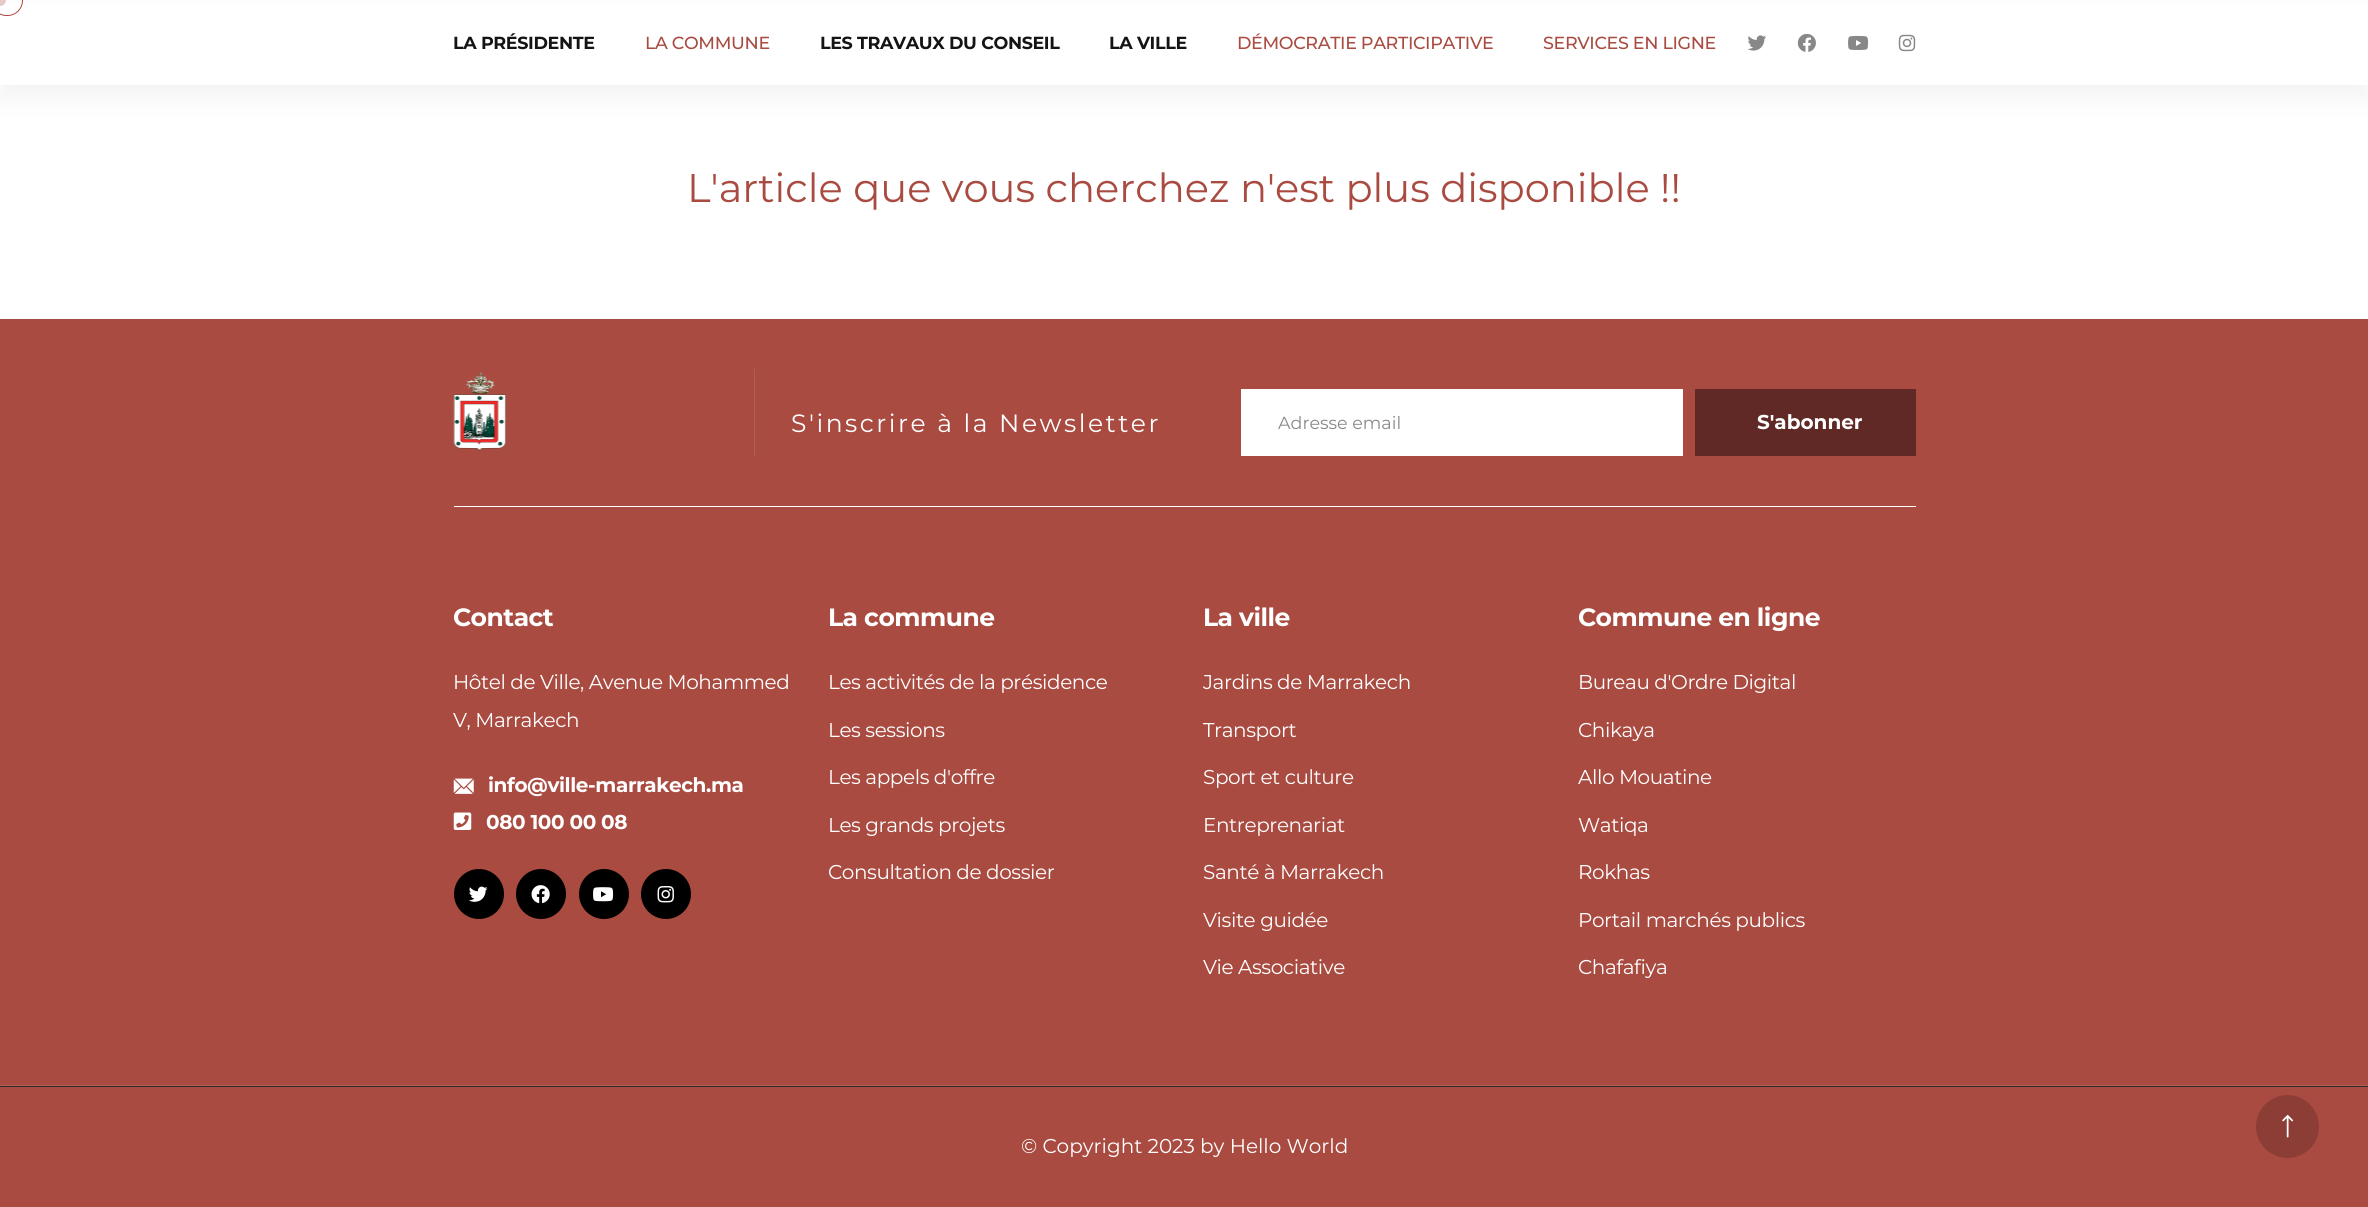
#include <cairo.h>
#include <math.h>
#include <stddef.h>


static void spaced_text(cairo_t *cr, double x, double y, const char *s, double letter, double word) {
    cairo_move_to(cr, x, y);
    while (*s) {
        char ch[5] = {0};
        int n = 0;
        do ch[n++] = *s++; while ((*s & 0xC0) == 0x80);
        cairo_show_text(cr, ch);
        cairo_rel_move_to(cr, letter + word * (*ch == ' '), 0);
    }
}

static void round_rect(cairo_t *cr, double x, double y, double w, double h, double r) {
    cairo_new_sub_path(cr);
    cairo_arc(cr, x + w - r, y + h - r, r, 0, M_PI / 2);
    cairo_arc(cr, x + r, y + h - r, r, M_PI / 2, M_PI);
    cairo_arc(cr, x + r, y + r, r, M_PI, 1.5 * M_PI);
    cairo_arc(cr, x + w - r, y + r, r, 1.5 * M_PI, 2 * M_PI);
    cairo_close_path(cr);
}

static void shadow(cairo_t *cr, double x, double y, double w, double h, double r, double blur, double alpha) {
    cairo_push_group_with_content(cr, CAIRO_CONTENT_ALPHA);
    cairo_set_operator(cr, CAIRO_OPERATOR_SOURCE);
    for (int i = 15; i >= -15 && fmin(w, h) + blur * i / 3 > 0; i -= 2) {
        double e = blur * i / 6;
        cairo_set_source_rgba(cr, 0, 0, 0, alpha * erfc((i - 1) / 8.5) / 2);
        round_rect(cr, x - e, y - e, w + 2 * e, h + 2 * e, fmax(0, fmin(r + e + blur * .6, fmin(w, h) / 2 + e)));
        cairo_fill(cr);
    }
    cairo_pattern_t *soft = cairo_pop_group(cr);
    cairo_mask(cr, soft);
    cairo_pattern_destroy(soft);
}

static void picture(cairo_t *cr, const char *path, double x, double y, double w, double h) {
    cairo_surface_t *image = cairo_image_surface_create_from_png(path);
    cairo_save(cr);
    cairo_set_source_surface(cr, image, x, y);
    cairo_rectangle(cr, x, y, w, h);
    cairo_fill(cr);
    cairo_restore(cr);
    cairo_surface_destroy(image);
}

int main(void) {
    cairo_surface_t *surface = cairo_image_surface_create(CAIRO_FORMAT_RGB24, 2368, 1207);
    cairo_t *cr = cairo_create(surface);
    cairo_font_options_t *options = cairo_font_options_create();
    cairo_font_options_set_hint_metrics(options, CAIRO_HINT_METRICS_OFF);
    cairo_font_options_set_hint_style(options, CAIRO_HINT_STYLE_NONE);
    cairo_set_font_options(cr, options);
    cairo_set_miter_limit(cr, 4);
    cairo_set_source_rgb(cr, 1, 1, 1);
    cairo_paint(cr);
    cairo_set_source_rgb(cr, 0, 0, 0);
    shadow(cr, 0, 13, 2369, 85, 0, 12.5, 0.05);
    cairo_set_source_rgb(cr, 1, 1, 1);
    cairo_rectangle(cr, 0, 3, 2368, 82);
    cairo_fill(cr);
    round_rect(cr, -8.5, -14.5, 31, 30, 15);
    cairo_set_source_rgb(cr, 0.663, 0.294, 0.255);
    cairo_set_line_width(cr, 1);
    cairo_stroke(cr);
    cairo_set_source_rgb(cr, 0.898, 0.788, 0.776);
    cairo_arc(cr, 0, 0, 6, 0, 2 * M_PI);
    cairo_fill(cr);
    cairo_select_font_face(cr, "Montserrat", CAIRO_FONT_SLANT_NORMAL, CAIRO_FONT_WEIGHT_BOLD);
    cairo_set_font_size(cr, 17.5);
    cairo_set_source_rgb(cr, 0.082, 0.082, 0.082);
    spaced_text(cr, 453, 49, "LA PRÉSIDENTE", -0.35, 0);
    cairo_select_font_face(cr, "Montserrat Medium", CAIRO_FONT_SLANT_NORMAL, CAIRO_FONT_WEIGHT_NORMAL);
    cairo_set_source_rgb(cr, 0.663, 0.294, 0.255);
    spaced_text(cr, 645, 49, "LA COMMUNE", -0.35, 0);
    cairo_select_font_face(cr, "Montserrat", CAIRO_FONT_SLANT_NORMAL, CAIRO_FONT_WEIGHT_BOLD);
    cairo_set_source_rgb(cr, 0.082, 0.082, 0.082);
    spaced_text(cr, 820, 49, "LES TRAVAUX DU CONSEIL", -0.35, 0);
    spaced_text(cr, 1109, 49, "LA VILLE", -0.35, 0);
    cairo_select_font_face(cr, "Montserrat Medium", CAIRO_FONT_SLANT_NORMAL, CAIRO_FONT_WEIGHT_NORMAL);
    cairo_set_source_rgb(cr, 0.663, 0.294, 0.255);
    spaced_text(cr, 1237, 49, "DÉMOCRATIE PARTICIPATIVE", -0.35, 0);
    spaced_text(cr, 1543, 49, "SERVICES EN LIGNE", -0.35, 0);
    picture(cr, "img1.png", 1747, 35, 19, 16);
    picture(cr, "img2.png", 1797, 33, 19, 19);
    picture(cr, "img3.png", 1848, 35, 21, 15);
    picture(cr, "img4.png", 1898, 34, 18, 18);
    cairo_select_font_face(cr, "Montserrat", CAIRO_FONT_SLANT_NORMAL, CAIRO_FONT_WEIGHT_NORMAL);
    cairo_set_font_size(cr, 40);
    cairo_move_to(cr, 687, 202);
    cairo_show_text(cr, "L'article que vous cherchez n'est plus disponible !!");
    cairo_rectangle(cr, 0, 319, 2368, 888);
    cairo_fill(cr);
    cairo_set_source_rgb(cr, 1, 1, 1);
    cairo_rectangle(cr, 454, 506, 1462, 1);
    cairo_fill(cr);
    picture(cr, "img5.png", 453, 372, 54, 79);
    cairo_set_source_rgb(cr, 0.698, 0.365, 0.329);
    cairo_rectangle(cr, 754, 369, 1, 87);
    cairo_fill(cr);
    cairo_set_font_size(cr, 25);
    cairo_set_source_rgb(cr, 1, 1, 1);
    spaced_text(cr, 791, 432, "S'inscrire à la Newsletter", 2.5, 0);
    cairo_rectangle(cr, 1241, 389, 442, 67);
    cairo_fill(cr);
    cairo_set_font_size(cr, 17.5);
    cairo_set_source_rgb(cr, 0.533, 0.533, 0.533);
    cairo_move_to(cr, 1278, 429);
    cairo_show_text(cr, "Adresse email");
    cairo_set_source_rgb(cr, 0.376, 0.161, 0.149);
    cairo_rectangle(cr, 1695, 389, 221, 67);
    cairo_fill(cr);
    cairo_select_font_face(cr, "Montserrat", CAIRO_FONT_SLANT_NORMAL, CAIRO_FONT_WEIGHT_BOLD);
    cairo_set_font_size(cr, 20);
    cairo_set_source_rgb(cr, 1, 1, 1);
    cairo_move_to(cr, 1757, 429);
    cairo_show_text(cr, "S'abonner");
    cairo_set_font_size(cr, 25);
    spaced_text(cr, 453, 626, "Contact", -0.5, 0);
    cairo_select_font_face(cr, "Montserrat", CAIRO_FONT_SLANT_NORMAL, CAIRO_FONT_WEIGHT_NORMAL);
    cairo_set_font_size(cr, 20);
    spaced_text(cr, 453, 689, "Hôtel de Ville, Avenue Mohammed", -0.4, 0);
    spaced_text(cr, 453, 727, "V, Marrakech", -0.4, 0);
    picture(cr, "img6.png", 453, 778, 21, 16);
    cairo_select_font_face(cr, "Montserrat", CAIRO_FONT_SLANT_NORMAL, CAIRO_FONT_WEIGHT_BOLD);
    spaced_text(cr, 488, 792, "info@ville-marrakech.ma", -0.4, 0);
    picture(cr, "img7.png", 453, 812, 19, 18);
    spaced_text(cr, 486, 829, "080 100 00 08", -0.4, 0);
    cairo_set_source_rgb(cr, 0, 0, 0);
    cairo_new_path(cr);
    cairo_arc(cr, 479, 894, 25, 0, 2 * M_PI);
    cairo_fill(cr);
    picture(cr, "img8.png", 469, 886, 19, 16);
    cairo_arc(cr, 541, 894, 25, 0, 2 * M_PI);
    cairo_fill(cr);
    picture(cr, "img9.png", 531, 885, 19, 19);
    cairo_arc(cr, 604, 894, 25, 0, 2 * M_PI);
    cairo_fill(cr);
    picture(cr, "img10.png", 593, 887, 21, 15);
    cairo_arc(cr, 666, 894, 25, 0, 2 * M_PI);
    cairo_fill(cr);
    picture(cr, "img11.png", 657, 886, 17, 17);
    cairo_set_font_size(cr, 25);
    cairo_set_source_rgb(cr, 1, 1, 1);
    spaced_text(cr, 828, 626, "La commune", -0.5, 0);
    cairo_select_font_face(cr, "Montserrat", CAIRO_FONT_SLANT_NORMAL, CAIRO_FONT_WEIGHT_NORMAL);
    cairo_set_font_size(cr, 20);
    spaced_text(cr, 828, 689, "Les activités de la présidence", -0.4, 0);
    spaced_text(cr, 828, 737, "Les sessions", -0.4, 0);
    spaced_text(cr, 828, 784, "Les appels d'offre", -0.4, 0);
    spaced_text(cr, 828, 832, "Les grands projets", -0.4, 0);
    spaced_text(cr, 828, 879, "Consultation de dossier", -0.4, 0);
    cairo_select_font_face(cr, "Montserrat", CAIRO_FONT_SLANT_NORMAL, CAIRO_FONT_WEIGHT_BOLD);
    cairo_set_font_size(cr, 25);
    spaced_text(cr, 1203, 626, "La ville", -0.5, 0);
    cairo_select_font_face(cr, "Montserrat", CAIRO_FONT_SLANT_NORMAL, CAIRO_FONT_WEIGHT_NORMAL);
    cairo_set_font_size(cr, 20);
    spaced_text(cr, 1203, 689, "Jardins de Marrakech", -0.4, 0);
    spaced_text(cr, 1203, 737, "Transport", -0.4, 0);
    spaced_text(cr, 1203, 784, "Sport et culture", -0.4, 0);
    spaced_text(cr, 1203, 832, "Entreprenariat", -0.4, 0);
    spaced_text(cr, 1203, 879, "Santé à Marrakech", -0.4, 0);
    spaced_text(cr, 1203, 927, "Visite guidée", -0.4, 0);
    spaced_text(cr, 1203, 974, "Vie Associative", -0.4, 0);
    cairo_select_font_face(cr, "Montserrat", CAIRO_FONT_SLANT_NORMAL, CAIRO_FONT_WEIGHT_BOLD);
    cairo_set_font_size(cr, 25);
    spaced_text(cr, 1578, 626, "Commune en ligne", -0.5, 0);
    cairo_select_font_face(cr, "Montserrat", CAIRO_FONT_SLANT_NORMAL, CAIRO_FONT_WEIGHT_NORMAL);
    cairo_set_font_size(cr, 20);
    spaced_text(cr, 1578, 689, "Bureau d'Ordre Digital", -0.4, 0);
    spaced_text(cr, 1578, 737, "Chikaya", -0.4, 0);
    spaced_text(cr, 1578, 784, "Allo Mouatine", -0.4, 0);
    spaced_text(cr, 1578, 832, "Watiqa", -0.4, 0);
    spaced_text(cr, 1578, 879, "Rokhas", -0.4, 0);
    spaced_text(cr, 1578, 927, "Portail marchés publics", -0.4, 0);
    spaced_text(cr, 1578, 974, "Chafafiya", -0.4, 0);
    cairo_set_source_rgb(cr, 0.698, 0.365, 0.329);
    cairo_new_path(cr);
    cairo_move_to(cr, 0, 1085);
    cairo_line_to(cr, 0, 1086);
    cairo_line_to(cr, 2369, 1086);
    cairo_line_to(cr, 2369, 1206);
    cairo_line_to(cr, 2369, 1085);
    cairo_close_path(cr);
    cairo_fill(cr);
    cairo_set_source_rgb(cr, 0.176, 0.176, 0.176);
    cairo_rectangle(cr, 0, 1086, 2368, 1);
    cairo_fill(cr);
    cairo_set_source_rgb(cr, 1, 1, 1);
    cairo_move_to(cr, 1021, 1153);
    cairo_show_text(cr, "© Copyright 2023 by Hello World");
    cairo_set_source_rgb(cr, 0.549, 0.243, 0.212);
    cairo_new_path(cr);
    cairo_arc(cr, 2287.5, 1126.5, 31.5, 0, 2 * M_PI);
    cairo_fill(cr);
    picture(cr, "img12.png", 2282, 1115, 12, 23);
    cairo_surface_write_to_png(surface, "page.png");
    cairo_font_options_destroy(options);
    cairo_destroy(cr);
    cairo_surface_destroy(surface);
    return 0;
}
